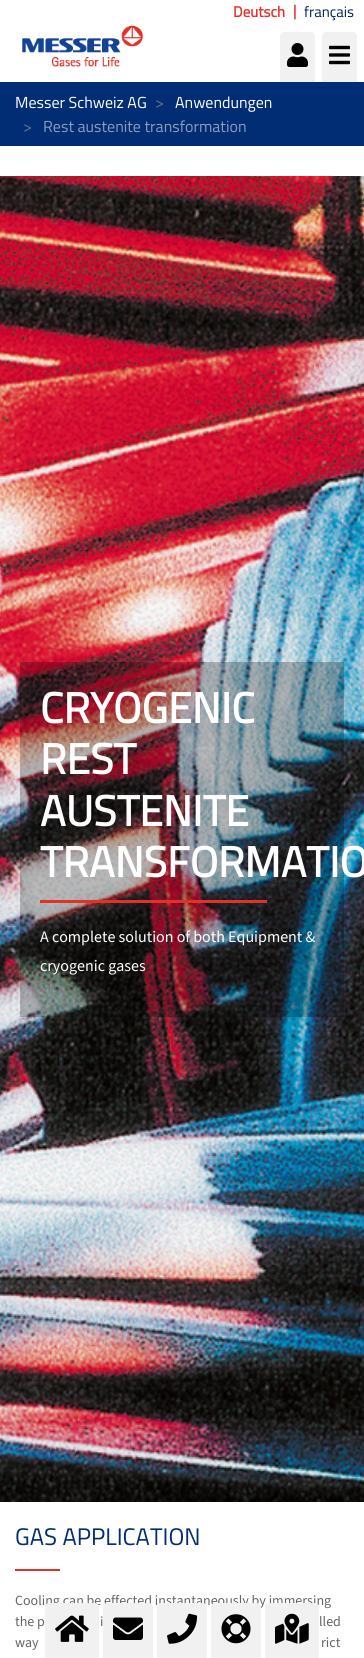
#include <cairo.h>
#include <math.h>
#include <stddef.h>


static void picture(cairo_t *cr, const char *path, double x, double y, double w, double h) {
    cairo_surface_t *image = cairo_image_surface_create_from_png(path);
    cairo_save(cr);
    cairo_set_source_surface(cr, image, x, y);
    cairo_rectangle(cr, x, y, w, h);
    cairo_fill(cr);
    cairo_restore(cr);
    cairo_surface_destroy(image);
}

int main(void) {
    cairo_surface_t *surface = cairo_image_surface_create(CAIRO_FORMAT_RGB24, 364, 1658);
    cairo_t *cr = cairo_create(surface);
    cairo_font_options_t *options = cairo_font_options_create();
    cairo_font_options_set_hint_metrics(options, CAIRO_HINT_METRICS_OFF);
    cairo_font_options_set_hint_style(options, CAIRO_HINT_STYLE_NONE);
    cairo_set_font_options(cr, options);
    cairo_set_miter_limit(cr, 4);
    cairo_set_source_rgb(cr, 1, 1, 1);
    cairo_paint(cr);
    cairo_select_font_face(cr, "Titillium Web", CAIRO_FONT_SLANT_NORMAL, CAIRO_FONT_WEIGHT_BOLD);
    cairo_set_font_size(cr, 15);
    cairo_set_source_rgb(cr, 0.89, 0.192, 0.165);
    cairo_move_to(cr, 233, 17);
    cairo_show_text(cr, "Deutsch");
    cairo_move_to(cr, 293, 16);
    cairo_show_text(cr, "|");
    cairo_select_font_face(cr, "Titillium Web", CAIRO_FONT_SLANT_NORMAL, CAIRO_FONT_WEIGHT_NORMAL);
    cairo_set_source_rgb(cr, 0.012, 0.137, 0.349);
    cairo_move_to(cr, 304, 17);
    cairo_show_text(cr, "français");
    picture(cr, "img1.png", 22, 25, 122, 42);
    cairo_set_source_rgb(cr, 0.945, 0.945, 0.945);
    cairo_new_path(cr);
    cairo_move_to(cr, 284, 32);
    cairo_line_to(cr, 311, 32);
    cairo_curve_to(cr, 313, 32, 315, 34, 315, 36);
    cairo_line_to(cr, 315, 82);
    cairo_line_to(cr, 280, 82);
    cairo_line_to(cr, 280, 36);
    cairo_curve_to(cr, 280, 34, 282, 32, 284, 32);
    cairo_close_path(cr);
    cairo_fill(cr);
    picture(cr, "img2.png", 287, 43, 21, 24);
    cairo_new_path(cr);
    cairo_move_to(cr, 326, 32);
    cairo_line_to(cr, 353, 32);
    cairo_curve_to(cr, 355, 32, 357, 34, 357, 36);
    cairo_line_to(cr, 357, 82);
    cairo_line_to(cr, 322, 82);
    cairo_line_to(cr, 322, 36);
    cairo_curve_to(cr, 322, 34, 324, 32, 326, 32);
    cairo_close_path(cr);
    cairo_fill(cr);
    picture(cr, "img3.png", 329, 45, 21, 20);
    cairo_set_source_rgb(cr, 0, 0.176, 0.451);
    cairo_rectangle(cr, 0, 82, 364, 64);
    cairo_fill(cr);
    cairo_set_font_size(cr, 16);
    cairo_set_source_rgb(cr, 1, 1, 1);
    cairo_move_to(cr, 15, 108);
    cairo_show_text(cr, "Messer Schweiz AG");
    cairo_set_source_rgb(cr, 0.424, 0.459, 0.49);
    cairo_move_to(cr, 155, 108);
    cairo_show_text(cr, ">");
    cairo_set_source_rgb(cr, 1, 1, 1);
    cairo_move_to(cr, 175, 108);
    cairo_show_text(cr, "Anwendungen");
    cairo_set_source_rgb(cr, 0.424, 0.459, 0.49);
    cairo_move_to(cr, 23, 132);
    cairo_show_text(cr, ">");
    cairo_set_source_rgb(cr, 0.545, 0.62, 0.737);
    cairo_move_to(cr, 43, 132);
    cairo_show_text(cr, "Rest austenite transformation");
    picture(cr, "img4.png", 0, 176, 364, 1326);
    cairo_set_source_rgba(cr, 0, 0, 0, 0.25);
    cairo_rectangle(cr, 20, 662, 324, 355);
    cairo_fill(cr);
    cairo_select_font_face(cr, "Titillium Web", CAIRO_FONT_SLANT_NORMAL, CAIRO_FONT_WEIGHT_BOLD);
    cairo_set_font_size(cr, 43);
    cairo_set_source_rgb(cr, 1, 1, 1);
    cairo_move_to(cr, 40, 723);
    cairo_show_text(cr, "CRYOGENIC");
    cairo_move_to(cr, 40, 774);
    cairo_show_text(cr, "REST");
    cairo_move_to(cr, 40, 826);
    cairo_show_text(cr, "AUSTENITE");
    cairo_move_to(cr, 40, 877);
    cairo_show_text(cr, "TRANSFORMATIO");
    cairo_set_source_rgb(cr, 0.89, 0.192, 0.165);
    cairo_rectangle(cr, 40, 900, 227, 3);
    cairo_fill(cr);
    cairo_select_font_face(cr, "Source Sans 3", CAIRO_FONT_SLANT_NORMAL, CAIRO_FONT_WEIGHT_NORMAL);
    cairo_set_font_size(cr, 16);
    cairo_set_source_rgb(cr, 1, 1, 1);
    cairo_move_to(cr, 40, 942);
    cairo_show_text(cr, "A complete solution of both Equipment &");
    cairo_move_to(cr, 40, 971);
    cairo_show_text(cr, "cryogenic gases");
    cairo_select_font_face(cr, "Titillium Web", CAIRO_FONT_SLANT_NORMAL, CAIRO_FONT_WEIGHT_NORMAL);
    cairo_set_font_size(cr, 24);
    cairo_set_source_rgb(cr, 0, 0.176, 0.451);
    cairo_move_to(cr, 15, 1545);
    cairo_show_text(cr, "GAS APPLICATION");
    cairo_set_source_rgb(cr, 0.89, 0.192, 0.165);
    cairo_rectangle(cr, 15, 1569, 45, 2);
    cairo_fill(cr);
    cairo_select_font_face(cr, "Source Sans 3", CAIRO_FONT_SLANT_NORMAL, CAIRO_FONT_WEIGHT_NORMAL);
    cairo_set_font_size(cr, 14);
    cairo_set_source_rgb(cr, 0.4, 0.4, 0.4);
    cairo_move_to(cr, 15, 1605);
    cairo_show_text(cr, "Cooling can be effected instantaneously by immersing");
    cairo_move_to(cr, 15, 1626);
    cairo_show_text(cr, "the p");
    cairo_move_to(cr, 100, 1626);
    cairo_show_text(cr, "i");
    cairo_move_to(cr, 319, 1626);
    cairo_show_text(cr, "lled");
    cairo_move_to(cr, 15, 1647);
    cairo_show_text(cr, "way");
    cairo_move_to(cr, 321, 1647);
    cairo_show_text(cr, "rict");
    cairo_set_source_rgb(cr, 0.945, 0.945, 0.945);
    cairo_new_path(cr);
    cairo_move_to(cr, 49, 1603);
    cairo_line_to(cr, 95, 1603);
    cairo_curve_to(cr, 97, 1603, 99, 1605, 99, 1607);
    cairo_line_to(cr, 99, 1658);
    cairo_line_to(cr, 45, 1658);
    cairo_line_to(cr, 45, 1607);
    cairo_curve_to(cr, 45, 1605, 47, 1603, 49, 1603);
    cairo_close_path(cr);
    cairo_fill(cr);
    picture(cr, "img5.png", 55, 1615, 34, 27);
    cairo_new_path(cr);
    cairo_move_to(cr, 107, 1603);
    cairo_line_to(cr, 149, 1603);
    cairo_curve_to(cr, 151, 1603, 153, 1605, 153, 1607);
    cairo_line_to(cr, 153, 1658);
    cairo_line_to(cr, 103, 1658);
    cairo_line_to(cr, 103, 1607);
    cairo_curve_to(cr, 103, 1605, 105, 1603, 107, 1603);
    cairo_close_path(cr);
    cairo_fill(cr);
    picture(cr, "img6.png", 113, 1617, 30, 23);
    cairo_new_path(cr);
    cairo_move_to(cr, 161, 1603);
    cairo_line_to(cr, 203, 1603);
    cairo_curve_to(cr, 205, 1603, 207, 1605, 207, 1607);
    cairo_line_to(cr, 207, 1658);
    cairo_line_to(cr, 157, 1658);
    cairo_line_to(cr, 157, 1607);
    cairo_curve_to(cr, 157, 1605, 159, 1603, 161, 1603);
    cairo_close_path(cr);
    cairo_fill(cr);
    picture(cr, "img7.png", 167, 1613, 31, 31);
    cairo_new_path(cr);
    cairo_move_to(cr, 215, 1603);
    cairo_line_to(cr, 257, 1603);
    cairo_curve_to(cr, 259, 1603, 261, 1605, 261, 1607);
    cairo_line_to(cr, 261, 1658);
    cairo_line_to(cr, 211, 1658);
    cairo_line_to(cr, 211, 1607);
    cairo_curve_to(cr, 211, 1605, 213, 1603, 215, 1603);
    cairo_close_path(cr);
    cairo_fill(cr);
    picture(cr, "img8.png", 221, 1614, 30, 30);
    cairo_new_path(cr);
    cairo_move_to(cr, 269, 1603);
    cairo_line_to(cr, 315, 1603);
    cairo_curve_to(cr, 317, 1603, 319, 1605, 319, 1607);
    cairo_line_to(cr, 319, 1658);
    cairo_line_to(cr, 265, 1658);
    cairo_line_to(cr, 265, 1607);
    cairo_curve_to(cr, 265, 1605, 267, 1603, 269, 1603);
    cairo_close_path(cr);
    cairo_fill(cr);
    picture(cr, "img9.png", 275, 1613, 34, 31);
    cairo_surface_write_to_png(surface, "page.png");
    cairo_font_options_destroy(options);
    cairo_destroy(cr);
    cairo_surface_destroy(surface);
    return 0;
}
